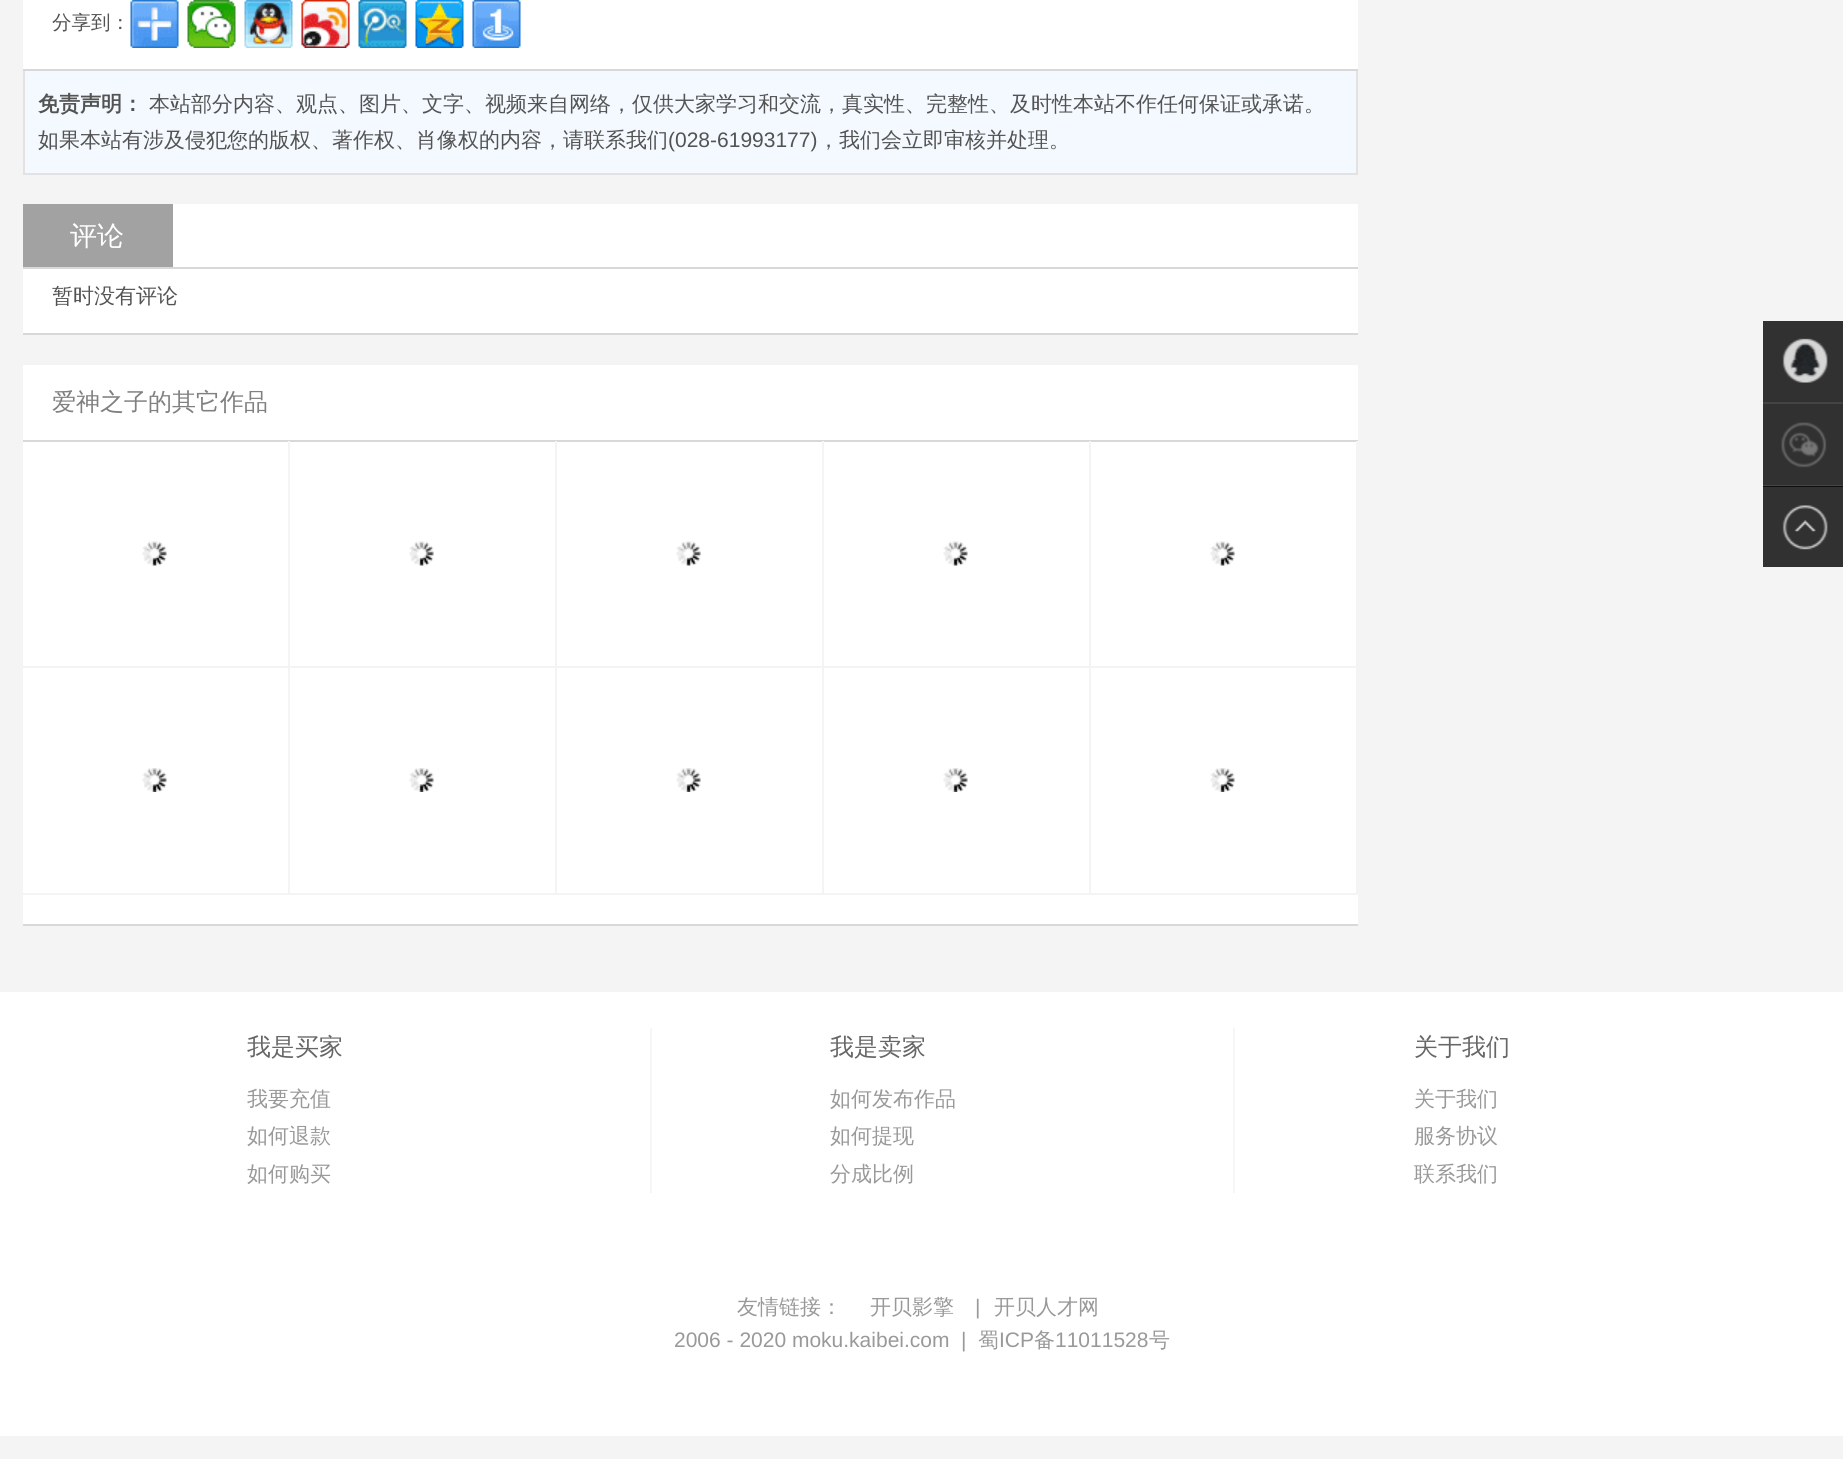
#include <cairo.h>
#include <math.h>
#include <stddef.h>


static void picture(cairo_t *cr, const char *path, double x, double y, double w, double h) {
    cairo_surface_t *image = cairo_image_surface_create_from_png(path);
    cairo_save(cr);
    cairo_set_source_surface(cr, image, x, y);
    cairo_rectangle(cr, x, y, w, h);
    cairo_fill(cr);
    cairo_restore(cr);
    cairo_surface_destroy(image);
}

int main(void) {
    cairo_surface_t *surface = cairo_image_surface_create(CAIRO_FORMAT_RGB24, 1843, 1459);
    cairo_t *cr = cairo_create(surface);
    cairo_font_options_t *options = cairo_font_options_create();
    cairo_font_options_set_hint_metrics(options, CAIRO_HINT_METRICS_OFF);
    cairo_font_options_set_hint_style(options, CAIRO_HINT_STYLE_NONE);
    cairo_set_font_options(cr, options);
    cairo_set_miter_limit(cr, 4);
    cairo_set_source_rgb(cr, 0.957, 0.957, 0.957);
    cairo_paint(cr);
    cairo_set_source_rgb(cr, 0.192, 0.192, 0.192);
    cairo_rectangle(cr, 1763, 487, 80, 80);
    cairo_fill(cr);
    cairo_set_source_rgb(cr, 1, 1, 1);
    cairo_rectangle(cr, 23, 0, 1335, 69);
    cairo_fill(cr);
    cairo_set_source_rgb(cr, 0.847, 0.847, 0.847);
    cairo_rectangle(cr, 23, 69, 1335, 2);
    cairo_fill(cr);
    cairo_select_font_face(cr, "WenQuanYi Zen Hei Medium", CAIRO_FONT_SLANT_NORMAL, CAIRO_FONT_WEIGHT_NORMAL);
    cairo_set_font_size(cr, 19.5);
    cairo_set_source_rgb(cr, 0.325, 0.325, 0.325);
    cairo_move_to(cr, 52, 29);
    cairo_show_text(cr, "分享到：");
    picture(cr, "img1.png", 130, 0, 49, 48);
    picture(cr, "img2.png", 187, 0, 49, 48);
    picture(cr, "img3.png", 244, 0, 49, 48);
    picture(cr, "img4.png", 301, 0, 49, 48);
    picture(cr, "img5.png", 358, 0, 49, 48);
    picture(cr, "img6.png", 415, 0, 49, 48);
    picture(cr, "img7.png", 472, 0, 49, 48);
    cairo_set_source_rgb(cr, 0.953, 0.973, 0.996);
    cairo_rectangle(cr, 25, 71, 1331, 102);
    cairo_fill(cr);
    cairo_set_source_rgb(cr, 0.886, 0.886, 0.886);
    cairo_rectangle(cr, 1356, 71, 2, 103);
    cairo_fill(cr);
    cairo_rectangle(cr, 23, 173, 1335, 2);
    cairo_fill(cr);
    cairo_rectangle(cr, 23, 71, 2, 103);
    cairo_fill(cr);
    cairo_select_font_face(cr, "WenQuanYi Zen Hei", CAIRO_FONT_SLANT_NORMAL, CAIRO_FONT_WEIGHT_BOLD);
    cairo_set_font_size(cr, 21);
    cairo_set_source_rgb(cr, 0.325, 0.325, 0.325);
    cairo_move_to(cr, 38, 111);
    cairo_show_text(cr, "免责声明：");
    cairo_select_font_face(cr, "WenQuanYi Zen Hei Medium", CAIRO_FONT_SLANT_NORMAL, CAIRO_FONT_WEIGHT_NORMAL);
    cairo_move_to(cr, 149, 111);
    cairo_show_text(cr, "本站部分内容、观点、图片、文字、视频来自网络，仅供大家学习和交流，真实性、完整性、及时性本站不作任何保证或承诺。");
    cairo_move_to(cr, 38, 147);
    cairo_show_text(cr, "如果本站有涉及侵犯您的版权、著作权、肖像权的内容，请联系我们");
    cairo_select_font_face(cr, "Liberation Sans", CAIRO_FONT_SLANT_NORMAL, CAIRO_FONT_WEIGHT_NORMAL);
    cairo_move_to(cr, 668, 147);
    cairo_show_text(cr, "(028-61993177)");
    cairo_select_font_face(cr, "WenQuanYi Zen Hei Medium", CAIRO_FONT_SLANT_NORMAL, CAIRO_FONT_WEIGHT_NORMAL);
    cairo_move_to(cr, 818, 147);
    cairo_show_text(cr, "，我们会立即审核并处理。");
    cairo_set_source_rgb(cr, 1, 1, 1);
    cairo_rectangle(cr, 173, 204, 1185, 63);
    cairo_fill(cr);
    cairo_set_source_rgb(cr, 0.847, 0.847, 0.847);
    cairo_rectangle(cr, 23, 267, 1335, 2);
    cairo_fill(cr);
    cairo_set_source_rgb(cr, 0.635, 0.635, 0.635);
    cairo_rectangle(cr, 23, 204, 150, 63);
    cairo_fill(cr);
    cairo_set_font_size(cr, 27);
    cairo_set_source_rgb(cr, 1, 1, 1);
    cairo_move_to(cr, 70, 245);
    cairo_show_text(cr, "评论");
    cairo_rectangle(cr, 23, 269, 1335, 64);
    cairo_fill(cr);
    cairo_set_source_rgb(cr, 0.847, 0.847, 0.847);
    cairo_rectangle(cr, 23, 333, 1335, 2);
    cairo_fill(cr);
    cairo_set_font_size(cr, 21);
    cairo_set_source_rgb(cr, 0.325, 0.325, 0.325);
    cairo_move_to(cr, 52, 303);
    cairo_show_text(cr, "暂时没有评论");
    cairo_set_source_rgb(cr, 1, 1, 1);
    cairo_rectangle(cr, 23, 365, 1335, 75);
    cairo_fill(cr);
    cairo_set_font_size(cr, 24);
    cairo_set_source_rgb(cr, 0.502, 0.502, 0.502);
    cairo_move_to(cr, 52, 410);
    cairo_show_text(cr, "爱神之子的其它作品");
    cairo_set_source_rgb(cr, 1, 1, 1);
    cairo_rectangle(cr, 23, 442, 1335, 482);
    cairo_fill(cr);
    cairo_set_source_rgb(cr, 0.847, 0.847, 0.847);
    cairo_rectangle(cr, 23, 440, 1335, 2);
    cairo_fill(cr);
    cairo_rectangle(cr, 23, 924, 1335, 2);
    cairo_fill(cr);
    cairo_set_source_rgb(cr, 0.957, 0.957, 0.957);
    cairo_rectangle(cr, 288, 441, 2, 453);
    cairo_fill(cr);
    cairo_rectangle(cr, 23, 666, 267, 2);
    cairo_fill(cr);
    picture(cr, "img8.png", 142, 541, 25, 25);
    cairo_rectangle(cr, 555, 441, 2, 453);
    cairo_fill(cr);
    cairo_rectangle(cr, 290, 666, 267, 2);
    cairo_fill(cr);
    picture(cr, "img9.png", 409, 541, 25, 25);
    cairo_rectangle(cr, 822, 441, 2, 453);
    cairo_fill(cr);
    cairo_rectangle(cr, 557, 666, 267, 2);
    cairo_fill(cr);
    picture(cr, "img9.png", 676, 541, 25, 25);
    cairo_rectangle(cr, 1089, 441, 2, 453);
    cairo_fill(cr);
    cairo_rectangle(cr, 824, 666, 267, 2);
    cairo_fill(cr);
    picture(cr, "img8.png", 943, 541, 25, 25);
    cairo_rectangle(cr, 1356, 441, 2, 453);
    cairo_fill(cr);
    cairo_rectangle(cr, 1091, 666, 267, 2);
    cairo_fill(cr);
    picture(cr, "img8.png", 1210, 541, 25, 25);
    cairo_rectangle(cr, 23, 893, 1335, 2);
    cairo_fill(cr);
    picture(cr, "img10.png", 142, 768, 25, 24);
    picture(cr, "img11.png", 409, 768, 25, 24);
    picture(cr, "img11.png", 676, 768, 25, 24);
    picture(cr, "img10.png", 943, 768, 25, 24);
    picture(cr, "img10.png", 1210, 768, 25, 24);
    cairo_set_source_rgb(cr, 0.267, 0.267, 0.267);
    cairo_rectangle(cr, 1763, 402, 80, 2);
    cairo_fill(cr);
    cairo_set_source_rgb(cr, 0.192, 0.192, 0.192);
    cairo_rectangle(cr, 1763, 321, 80, 81);
    cairo_fill(cr);
    picture(cr, "img12.png", 1782, 338, 46, 45);
    cairo_set_source_rgb(cr, 0.267, 0.267, 0.267);
    cairo_rectangle(cr, 1763, 485, 80, 1);
    cairo_fill(cr);
    cairo_set_source_rgb(cr, 0.055, 0.055, 0.055);
    cairo_rectangle(cr, 1763, 486, 80, 1);
    cairo_fill(cr);
    cairo_set_source_rgb(cr, 0.192, 0.192, 0.192);
    cairo_rectangle(cr, 1763, 404, 80, 81);
    cairo_fill(cr);
    picture(cr, "img13.png", 1781, 422, 46, 46);
    picture(cr, "img14.png", 1782, 505, 46, 45);
    cairo_set_source_rgb(cr, 1, 1, 1);
    cairo_rectangle(cr, 0, 992, 1843, 444);
    cairo_fill(cr);
    cairo_set_source_rgb(cr, 0.4, 0.4, 0.4);
    cairo_move_to(cr, 247, 1055);
    cairo_show_text(cr, "我是买家");
    cairo_set_font_size(cr, 21);
    cairo_set_source_rgb(cr, 0.6, 0.6, 0.6);
    cairo_move_to(cr, 247, 1106);
    cairo_show_text(cr, "我要充值");
    cairo_move_to(cr, 247, 1143);
    cairo_show_text(cr, "如何退款");
    cairo_move_to(cr, 247, 1181);
    cairo_show_text(cr, "如何购买");
    cairo_set_source_rgb(cr, 0.961, 0.961, 0.961);
    cairo_rectangle(cr, 650, 1028, 2, 165);
    cairo_fill(cr);
    cairo_set_font_size(cr, 24);
    cairo_set_source_rgb(cr, 0.4, 0.4, 0.4);
    cairo_move_to(cr, 830, 1055);
    cairo_show_text(cr, "我是卖家");
    cairo_set_font_size(cr, 21);
    cairo_set_source_rgb(cr, 0.6, 0.6, 0.6);
    cairo_move_to(cr, 830, 1106);
    cairo_show_text(cr, "如何发布作品");
    cairo_move_to(cr, 830, 1143);
    cairo_show_text(cr, "如何提现");
    cairo_move_to(cr, 830, 1181);
    cairo_show_text(cr, "分成比例");
    cairo_set_source_rgb(cr, 0.961, 0.961, 0.961);
    cairo_rectangle(cr, 1233, 1028, 2, 165);
    cairo_fill(cr);
    cairo_set_font_size(cr, 24);
    cairo_set_source_rgb(cr, 0.4, 0.4, 0.4);
    cairo_move_to(cr, 1414, 1055);
    cairo_show_text(cr, "关于我们");
    cairo_set_font_size(cr, 21);
    cairo_set_source_rgb(cr, 0.6, 0.6, 0.6);
    cairo_move_to(cr, 1414, 1106);
    cairo_show_text(cr, "关于我们");
    cairo_move_to(cr, 1414, 1143);
    cairo_show_text(cr, "服务协议");
    cairo_move_to(cr, 1414, 1181);
    cairo_show_text(cr, "联系我们");
    cairo_move_to(cr, 737, 1314);
    cairo_show_text(cr, "友情链接：");
    cairo_move_to(cr, 870, 1314);
    cairo_show_text(cr, "开贝影擎");
    cairo_select_font_face(cr, "Liberation Sans", CAIRO_FONT_SLANT_NORMAL, CAIRO_FONT_WEIGHT_NORMAL);
    cairo_move_to(cr, 975, 1314);
    cairo_show_text(cr, "|");
    cairo_select_font_face(cr, "WenQuanYi Zen Hei Medium", CAIRO_FONT_SLANT_NORMAL, CAIRO_FONT_WEIGHT_NORMAL);
    cairo_move_to(cr, 994, 1314);
    cairo_show_text(cr, "开贝人才网");
    cairo_select_font_face(cr, "Liberation Sans", CAIRO_FONT_SLANT_NORMAL, CAIRO_FONT_WEIGHT_NORMAL);
    cairo_move_to(cr, 674, 1347);
    cairo_show_text(cr, "2006 - 2020 moku.kaibei.com");
    cairo_move_to(cr, 961, 1347);
    cairo_show_text(cr, "|");
    cairo_select_font_face(cr, "WenQuanYi Zen Hei Medium", CAIRO_FONT_SLANT_NORMAL, CAIRO_FONT_WEIGHT_NORMAL);
    cairo_move_to(cr, 978, 1347);
    cairo_show_text(cr, "蜀");
    cairo_select_font_face(cr, "Liberation Sans", CAIRO_FONT_SLANT_NORMAL, CAIRO_FONT_WEIGHT_NORMAL);
    cairo_move_to(cr, 999, 1347);
    cairo_show_text(cr, "ICP");
    cairo_select_font_face(cr, "WenQuanYi Zen Hei Medium", CAIRO_FONT_SLANT_NORMAL, CAIRO_FONT_WEIGHT_NORMAL);
    cairo_move_to(cr, 1034, 1347);
    cairo_show_text(cr, "备");
    cairo_select_font_face(cr, "Liberation Sans", CAIRO_FONT_SLANT_NORMAL, CAIRO_FONT_WEIGHT_NORMAL);
    cairo_move_to(cr, 1055, 1347);
    cairo_show_text(cr, "11011528");
    cairo_select_font_face(cr, "WenQuanYi Zen Hei Medium", CAIRO_FONT_SLANT_NORMAL, CAIRO_FONT_WEIGHT_NORMAL);
    cairo_move_to(cr, 1149, 1347);
    cairo_show_text(cr, "号");
    cairo_surface_write_to_png(surface, "page.png");
    cairo_font_options_destroy(options);
    cairo_destroy(cr);
    cairo_surface_destroy(surface);
    return 0;
}
